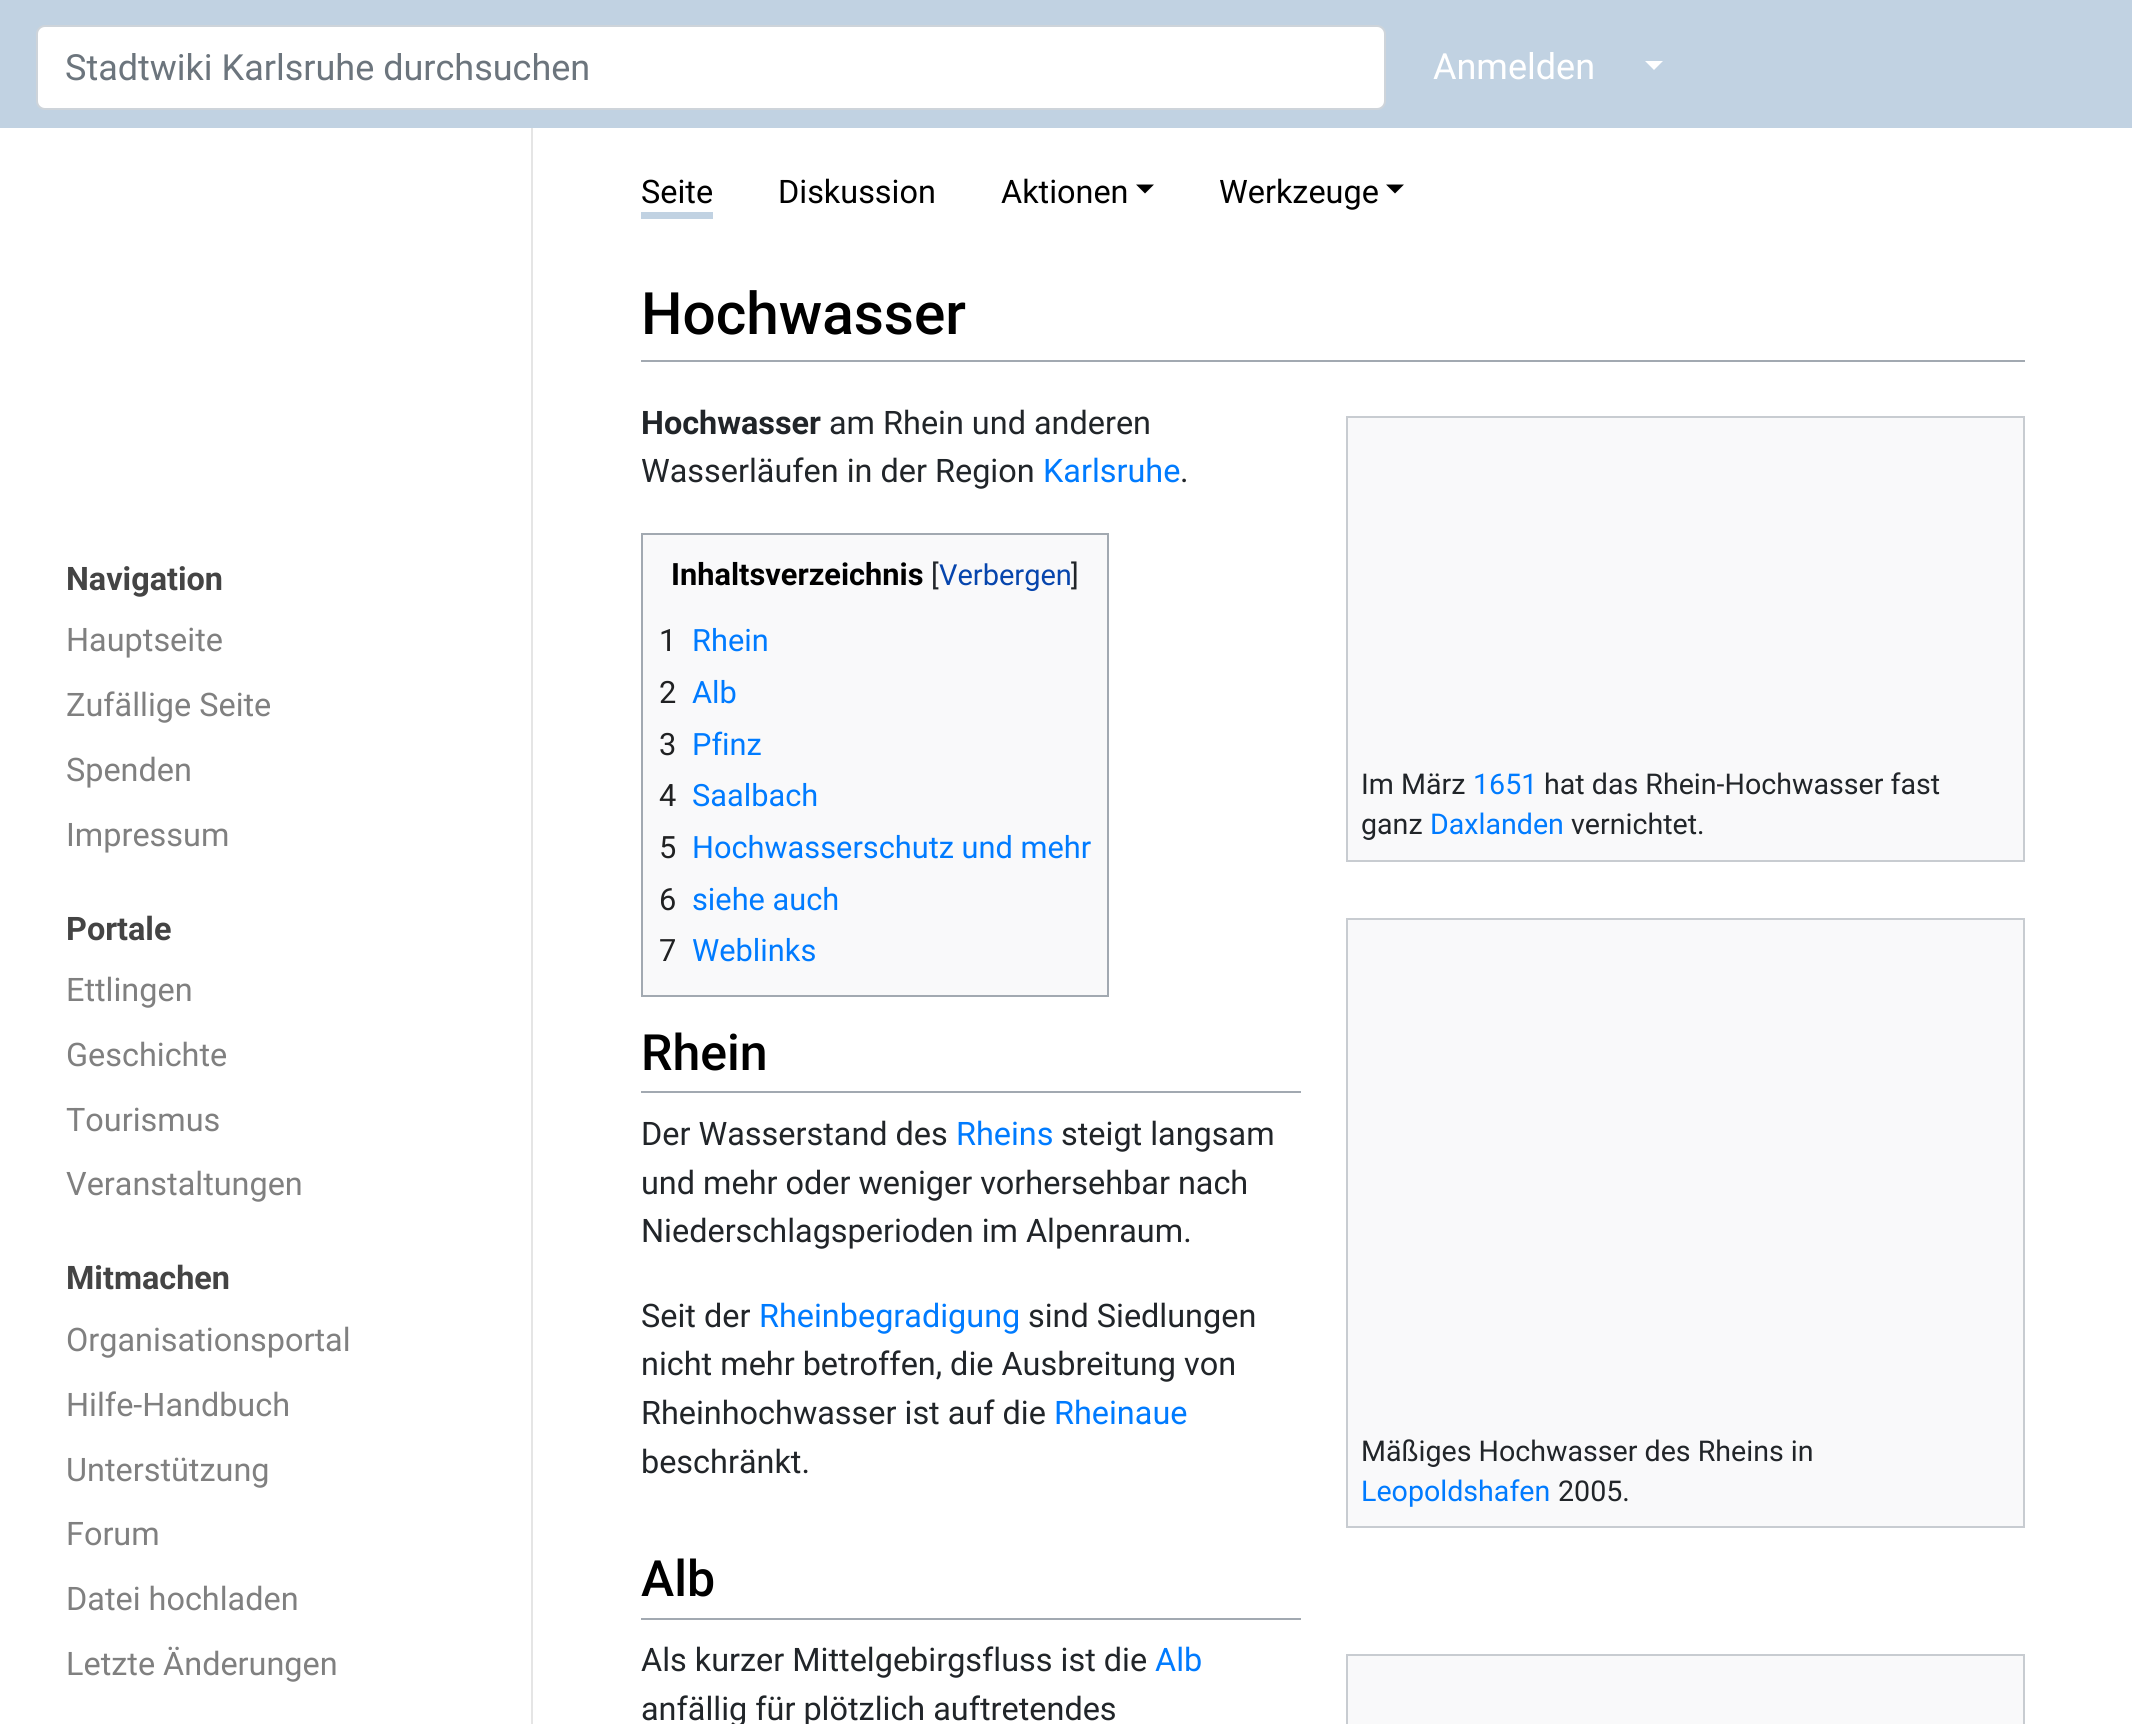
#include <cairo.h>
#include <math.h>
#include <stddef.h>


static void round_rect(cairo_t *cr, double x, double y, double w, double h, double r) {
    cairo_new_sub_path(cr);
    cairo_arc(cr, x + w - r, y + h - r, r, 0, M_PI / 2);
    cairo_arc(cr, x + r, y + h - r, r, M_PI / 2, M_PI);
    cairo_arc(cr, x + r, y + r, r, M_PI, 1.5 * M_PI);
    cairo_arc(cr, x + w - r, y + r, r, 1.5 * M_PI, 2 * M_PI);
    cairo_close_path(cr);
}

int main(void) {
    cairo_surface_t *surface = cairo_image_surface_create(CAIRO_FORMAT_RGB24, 2132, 1724);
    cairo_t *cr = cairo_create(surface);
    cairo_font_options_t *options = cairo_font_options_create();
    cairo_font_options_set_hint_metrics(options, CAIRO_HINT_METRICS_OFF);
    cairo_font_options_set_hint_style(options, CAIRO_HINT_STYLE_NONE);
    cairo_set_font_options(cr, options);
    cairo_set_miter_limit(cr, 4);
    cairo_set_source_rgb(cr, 1, 1, 1);
    cairo_paint(cr);
    cairo_set_source_rgb(cr, 0.757, 0.824, 0.886);
    cairo_rectangle(cr, 0, 0, 2132, 128);
    cairo_fill(cr);
    cairo_set_source_rgb(cr, 1, 1, 1);
    round_rect(cr, 37, 26, 1348, 83, 8);
    cairo_fill_preserve(cr);
    cairo_set_source_rgb(cr, 0.808, 0.831, 0.855);
    cairo_stroke(cr);
    cairo_select_font_face(cr, "Roboto", CAIRO_FONT_SLANT_NORMAL, CAIRO_FONT_WEIGHT_NORMAL);
    cairo_set_font_size(cr, 36);
    cairo_set_source_rgb(cr, 0.424, 0.459, 0.49);
    cairo_move_to(cr, 65, 80);
    cairo_show_text(cr, "Stadtwiki Karlsruhe durchsuchen");
    cairo_set_source_rgb(cr, 1, 1, 1);
    cairo_move_to(cr, 1433, 79);
    cairo_show_text(cr, "Anmelden");
    cairo_new_path(cr);
    cairo_move_to(cr, 1645, 61);
    cairo_line_to(cr, 1663, 61);
    cairo_line_to(cr, 1654, 70);
    cairo_close_path(cr);
    cairo_fill(cr);
    cairo_set_source_rgb(cr, 0.898, 0.898, 0.898);
    cairo_rectangle(cr, 531, 128, 2, 1596);
    cairo_fill(cr);
    cairo_select_font_face(cr, "Roboto", CAIRO_FONT_SLANT_NORMAL, CAIRO_FONT_WEIGHT_BOLD);
    cairo_set_font_size(cr, 32.4);
    cairo_set_source_rgb(cr, 0.267, 0.267, 0.267);
    cairo_move_to(cr, 66, 590);
    cairo_show_text(cr, "Navigation");
    cairo_select_font_face(cr, "Roboto", CAIRO_FONT_SLANT_NORMAL, CAIRO_FONT_WEIGHT_NORMAL);
    cairo_set_source_rgb(cr, 0.502, 0.502, 0.502);
    cairo_move_to(cr, 66, 651);
    cairo_show_text(cr, "Hauptseite");
    cairo_move_to(cr, 66, 716);
    cairo_show_text(cr, "Zufällige Seite");
    cairo_move_to(cr, 66, 781);
    cairo_show_text(cr, "Spenden");
    cairo_move_to(cr, 66, 846);
    cairo_show_text(cr, "Impressum");
    cairo_select_font_face(cr, "Roboto", CAIRO_FONT_SLANT_NORMAL, CAIRO_FONT_WEIGHT_BOLD);
    cairo_set_source_rgb(cr, 0.267, 0.267, 0.267);
    cairo_move_to(cr, 66, 940);
    cairo_show_text(cr, "Portale");
    cairo_select_font_face(cr, "Roboto", CAIRO_FONT_SLANT_NORMAL, CAIRO_FONT_WEIGHT_NORMAL);
    cairo_set_source_rgb(cr, 0.502, 0.502, 0.502);
    cairo_move_to(cr, 66, 1001);
    cairo_show_text(cr, "Ettlingen");
    cairo_move_to(cr, 66, 1066);
    cairo_show_text(cr, "Geschichte");
    cairo_move_to(cr, 66, 1131);
    cairo_show_text(cr, "Tourismus");
    cairo_move_to(cr, 66, 1195);
    cairo_show_text(cr, "Veranstaltungen");
    cairo_select_font_face(cr, "Roboto", CAIRO_FONT_SLANT_NORMAL, CAIRO_FONT_WEIGHT_BOLD);
    cairo_set_source_rgb(cr, 0.267, 0.267, 0.267);
    cairo_move_to(cr, 66, 1289);
    cairo_show_text(cr, "Mitmachen");
    cairo_select_font_face(cr, "Roboto", CAIRO_FONT_SLANT_NORMAL, CAIRO_FONT_WEIGHT_NORMAL);
    cairo_set_source_rgb(cr, 0.502, 0.502, 0.502);
    cairo_move_to(cr, 66, 1351);
    cairo_show_text(cr, "Organisationsportal");
    cairo_move_to(cr, 66, 1416);
    cairo_show_text(cr, "Hilfe-Handbuch");
    cairo_move_to(cr, 66, 1481);
    cairo_show_text(cr, "Unterstützung");
    cairo_move_to(cr, 66, 1545);
    cairo_show_text(cr, "Forum");
    cairo_move_to(cr, 66, 1610);
    cairo_show_text(cr, "Datei hochladen");
    cairo_move_to(cr, 66, 1675);
    cairo_show_text(cr, "Letzte Änderungen");
    cairo_set_source_rgb(cr, 0, 0, 0);
    cairo_move_to(cr, 641, 203);
    cairo_show_text(cr, "Seite");
    cairo_set_source_rgb(cr, 0.757, 0.824, 0.886);
    cairo_rectangle(cr, 641, 212, 72, 7);
    cairo_fill(cr);
    cairo_set_source_rgb(cr, 0, 0, 0);
    cairo_move_to(cr, 778, 203);
    cairo_show_text(cr, "Diskussion");
    cairo_move_to(cr, 1001, 203);
    cairo_show_text(cr, "Aktionen");
    cairo_new_path(cr);
    cairo_move_to(cr, 1136, 184.5);
    cairo_line_to(cr, 1154, 184.5);
    cairo_line_to(cr, 1145, 193.5);
    cairo_close_path(cr);
    cairo_fill(cr);
    cairo_move_to(cr, 1219, 203);
    cairo_show_text(cr, "Werkzeuge");
    cairo_new_path(cr);
    cairo_move_to(cr, 1386, 184.5);
    cairo_line_to(cr, 1404, 184.5);
    cairo_line_to(cr, 1395, 193.5);
    cairo_close_path(cr);
    cairo_fill(cr);
    cairo_set_source_rgb(cr, 0.635, 0.663, 0.694);
    cairo_rectangle(cr, 641, 360, 1384, 2);
    cairo_fill(cr);
    cairo_select_font_face(cr, "Roboto Medium", CAIRO_FONT_SLANT_NORMAL, CAIRO_FONT_WEIGHT_NORMAL);
    cairo_set_font_size(cr, 58.5);
    cairo_set_source_rgb(cr, 0, 0, 0);
    cairo_move_to(cr, 641, 334);
    cairo_show_text(cr, "Hochwasser");
    cairo_select_font_face(cr, "Roboto", CAIRO_FONT_SLANT_NORMAL, CAIRO_FONT_WEIGHT_BOLD);
    cairo_set_font_size(cr, 32.4);
    cairo_set_source_rgb(cr, 0.129, 0.145, 0.161);
    cairo_move_to(cr, 641, 434);
    cairo_show_text(cr, "Hochwasser");
    cairo_select_font_face(cr, "Roboto", CAIRO_FONT_SLANT_NORMAL, CAIRO_FONT_WEIGHT_NORMAL);
    cairo_move_to(cr, 829, 434);
    cairo_show_text(cr, "am Rhein und anderen");
    cairo_move_to(cr, 641, 482);
    cairo_show_text(cr, "Wasserläufen in der Region");
    cairo_set_source_rgb(cr, 0, 0.482, 1);
    cairo_move_to(cr, 1043, 482);
    cairo_show_text(cr, "Karlsruhe");
    cairo_set_source_rgb(cr, 0.129, 0.145, 0.161);
    cairo_move_to(cr, 1180, 482);
    cairo_show_text(cr, ".");
    cairo_set_source_rgb(cr, 0.973, 0.976, 0.98);
    cairo_rectangle(cr, 642, 534, 466, 462);
    cairo_fill_preserve(cr);
    cairo_set_source_rgb(cr, 0.635, 0.663, 0.694);
    cairo_stroke(cr);
    cairo_select_font_face(cr, "Roboto", CAIRO_FONT_SLANT_NORMAL, CAIRO_FONT_WEIGHT_BOLD);
    cairo_set_font_size(cr, 30.75);
    cairo_set_source_rgb(cr, 0, 0, 0);
    cairo_move_to(cr, 671, 585);
    cairo_show_text(cr, "Inhaltsverzeichnis");
    cairo_select_font_face(cr, "Roboto", CAIRO_FONT_SLANT_NORMAL, CAIRO_FONT_WEIGHT_NORMAL);
    cairo_set_font_size(cr, 29);
    cairo_set_source_rgb(cr, 0.129, 0.145, 0.161);
    cairo_move_to(cr, 931, 585);
    cairo_show_text(cr, "[");
    cairo_set_source_rgb(cr, 0.024, 0.271, 0.678);
    cairo_move_to(cr, 939, 585);
    cairo_show_text(cr, "Verbergen");
    cairo_set_source_rgb(cr, 0.129, 0.145, 0.161);
    cairo_move_to(cr, 1071, 585);
    cairo_show_text(cr, "]");
    cairo_set_font_size(cr, 30.75);
    cairo_set_source_rgb(cr, 0.125, 0.129, 0.133);
    cairo_move_to(cr, 659, 651);
    cairo_show_text(cr, "1");
    cairo_set_source_rgb(cr, 0, 0.482, 1);
    cairo_move_to(cr, 692, 651);
    cairo_show_text(cr, "Rhein");
    cairo_set_source_rgb(cr, 0.125, 0.129, 0.133);
    cairo_move_to(cr, 659, 703);
    cairo_show_text(cr, "2");
    cairo_set_source_rgb(cr, 0, 0.482, 1);
    cairo_move_to(cr, 692, 703);
    cairo_show_text(cr, "Alb");
    cairo_set_source_rgb(cr, 0.125, 0.129, 0.133);
    cairo_move_to(cr, 659, 755);
    cairo_show_text(cr, "3");
    cairo_set_source_rgb(cr, 0, 0.482, 1);
    cairo_move_to(cr, 692, 755);
    cairo_show_text(cr, "Pfinz");
    cairo_set_source_rgb(cr, 0.125, 0.129, 0.133);
    cairo_move_to(cr, 659, 806);
    cairo_show_text(cr, "4");
    cairo_set_source_rgb(cr, 0, 0.482, 1);
    cairo_move_to(cr, 692, 806);
    cairo_show_text(cr, "Saalbach");
    cairo_set_source_rgb(cr, 0.125, 0.129, 0.133);
    cairo_move_to(cr, 659, 858);
    cairo_show_text(cr, "5");
    cairo_set_source_rgb(cr, 0, 0.482, 1);
    cairo_move_to(cr, 692, 858);
    cairo_show_text(cr, "Hochwasserschutz und mehr");
    cairo_set_source_rgb(cr, 0.125, 0.129, 0.133);
    cairo_move_to(cr, 659, 910);
    cairo_show_text(cr, "6");
    cairo_set_source_rgb(cr, 0, 0.482, 1);
    cairo_move_to(cr, 692, 910);
    cairo_show_text(cr, "siehe auch");
    cairo_set_source_rgb(cr, 0.125, 0.129, 0.133);
    cairo_move_to(cr, 659, 961);
    cairo_show_text(cr, "7");
    cairo_set_source_rgb(cr, 0, 0.482, 1);
    cairo_move_to(cr, 692, 961);
    cairo_show_text(cr, "Weblinks");
    cairo_set_source_rgb(cr, 0.973, 0.976, 0.98);
    cairo_rectangle(cr, 1347, 417, 677, 444);
    cairo_fill_preserve(cr);
    cairo_set_source_rgb(cr, 0.784, 0.8, 0.82);
    cairo_stroke(cr);
    cairo_set_font_size(cr, 28.6);
    cairo_set_source_rgb(cr, 0.129, 0.145, 0.161);
    cairo_move_to(cr, 1361, 794);
    cairo_show_text(cr, "Im März");
    cairo_set_source_rgb(cr, 0, 0.482, 1);
    cairo_move_to(cr, 1473, 794);
    cairo_show_text(cr, "1651");
    cairo_set_source_rgb(cr, 0.129, 0.145, 0.161);
    cairo_move_to(cr, 1544, 794);
    cairo_show_text(cr, "hat das Rhein-Hochwasser fast");
    cairo_move_to(cr, 1361, 834);
    cairo_show_text(cr, "ganz");
    cairo_set_source_rgb(cr, 0, 0.482, 1);
    cairo_move_to(cr, 1430, 834);
    cairo_show_text(cr, "Daxlanden");
    cairo_set_source_rgb(cr, 0.129, 0.145, 0.161);
    cairo_move_to(cr, 1571, 834);
    cairo_show_text(cr, "vernichtet.");
    cairo_set_source_rgb(cr, 0.635, 0.663, 0.694);
    cairo_rectangle(cr, 641, 1091, 660, 2);
    cairo_fill(cr);
    cairo_select_font_face(cr, "Roboto Medium", CAIRO_FONT_SLANT_NORMAL, CAIRO_FONT_WEIGHT_NORMAL);
    cairo_set_font_size(cr, 50);
    cairo_set_source_rgb(cr, 0, 0, 0);
    cairo_move_to(cr, 641, 1070);
    cairo_show_text(cr, "Rhein");
    cairo_select_font_face(cr, "Roboto", CAIRO_FONT_SLANT_NORMAL, CAIRO_FONT_WEIGHT_NORMAL);
    cairo_set_font_size(cr, 32.4);
    cairo_set_source_rgb(cr, 0.129, 0.145, 0.161);
    cairo_move_to(cr, 641, 1145);
    cairo_show_text(cr, "Der Wasserstand des");
    cairo_set_source_rgb(cr, 0, 0.482, 1);
    cairo_move_to(cr, 956, 1145);
    cairo_show_text(cr, "Rheins");
    cairo_set_source_rgb(cr, 0.129, 0.145, 0.161);
    cairo_move_to(cr, 1061, 1145);
    cairo_show_text(cr, "steigt langsam");
    cairo_move_to(cr, 641, 1194);
    cairo_show_text(cr, "und mehr oder weniger vorhersehbar nach");
    cairo_move_to(cr, 641, 1242);
    cairo_show_text(cr, "Niederschlagsperioden im Alpenraum.");
    cairo_move_to(cr, 641, 1327);
    cairo_show_text(cr, "Seit der");
    cairo_set_source_rgb(cr, 0, 0.482, 1);
    cairo_move_to(cr, 759, 1327);
    cairo_show_text(cr, "Rheinbegradigung");
    cairo_set_source_rgb(cr, 0.129, 0.145, 0.161);
    cairo_move_to(cr, 1028, 1327);
    cairo_show_text(cr, "sind Siedlungen");
    cairo_move_to(cr, 641, 1375);
    cairo_show_text(cr, "nicht mehr betroffen, die Ausbreitung von");
    cairo_move_to(cr, 641, 1424);
    cairo_show_text(cr, "Rheinhochwasser ist auf die");
    cairo_set_source_rgb(cr, 0, 0.482, 1);
    cairo_move_to(cr, 1054, 1424);
    cairo_show_text(cr, "Rheinaue");
    cairo_set_source_rgb(cr, 0.129, 0.145, 0.161);
    cairo_move_to(cr, 641, 1473);
    cairo_show_text(cr, "beschränkt.");
    cairo_set_source_rgb(cr, 0.973, 0.976, 0.98);
    cairo_rectangle(cr, 1347, 919, 677, 608);
    cairo_fill_preserve(cr);
    cairo_set_source_rgb(cr, 0.784, 0.8, 0.82);
    cairo_stroke(cr);
    cairo_set_font_size(cr, 28.6);
    cairo_set_source_rgb(cr, 0.129, 0.145, 0.161);
    cairo_move_to(cr, 1361, 1461);
    cairo_show_text(cr, "Mäßiges Hochwasser des Rheins in");
    cairo_set_source_rgb(cr, 0, 0.482, 1);
    cairo_move_to(cr, 1361, 1501);
    cairo_show_text(cr, "Leopoldshafen");
    cairo_set_source_rgb(cr, 0.129, 0.145, 0.161);
    cairo_move_to(cr, 1558, 1501);
    cairo_show_text(cr, "2005.");
    cairo_set_source_rgb(cr, 0.635, 0.663, 0.694);
    cairo_rectangle(cr, 641, 1618, 660, 2);
    cairo_fill(cr);
    cairo_select_font_face(cr, "Roboto Medium", CAIRO_FONT_SLANT_NORMAL, CAIRO_FONT_WEIGHT_NORMAL);
    cairo_set_font_size(cr, 50);
    cairo_set_source_rgb(cr, 0, 0, 0);
    cairo_move_to(cr, 641, 1596);
    cairo_show_text(cr, "Alb");
    cairo_select_font_face(cr, "Roboto", CAIRO_FONT_SLANT_NORMAL, CAIRO_FONT_WEIGHT_NORMAL);
    cairo_set_font_size(cr, 32.4);
    cairo_set_source_rgb(cr, 0.129, 0.145, 0.161);
    cairo_move_to(cr, 641, 1671);
    cairo_show_text(cr, "Als kurzer Mittelgebirgsfluss ist die");
    cairo_set_source_rgb(cr, 0, 0.482, 1);
    cairo_move_to(cr, 1155, 1671);
    cairo_show_text(cr, "Alb");
    cairo_set_source_rgb(cr, 0.129, 0.145, 0.161);
    cairo_move_to(cr, 641, 1720);
    cairo_show_text(cr, "anfällig für plötzlich auftretendes");
    cairo_set_source_rgb(cr, 0.973, 0.976, 0.98);
    cairo_rectangle(cr, 1347, 1655, 677, 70);
    cairo_fill_preserve(cr);
    cairo_set_source_rgb(cr, 0.784, 0.8, 0.82);
    cairo_stroke(cr);
    cairo_surface_write_to_png(surface, "page.png");
    cairo_font_options_destroy(options);
    cairo_destroy(cr);
    cairo_surface_destroy(surface);
    return 0;
}
